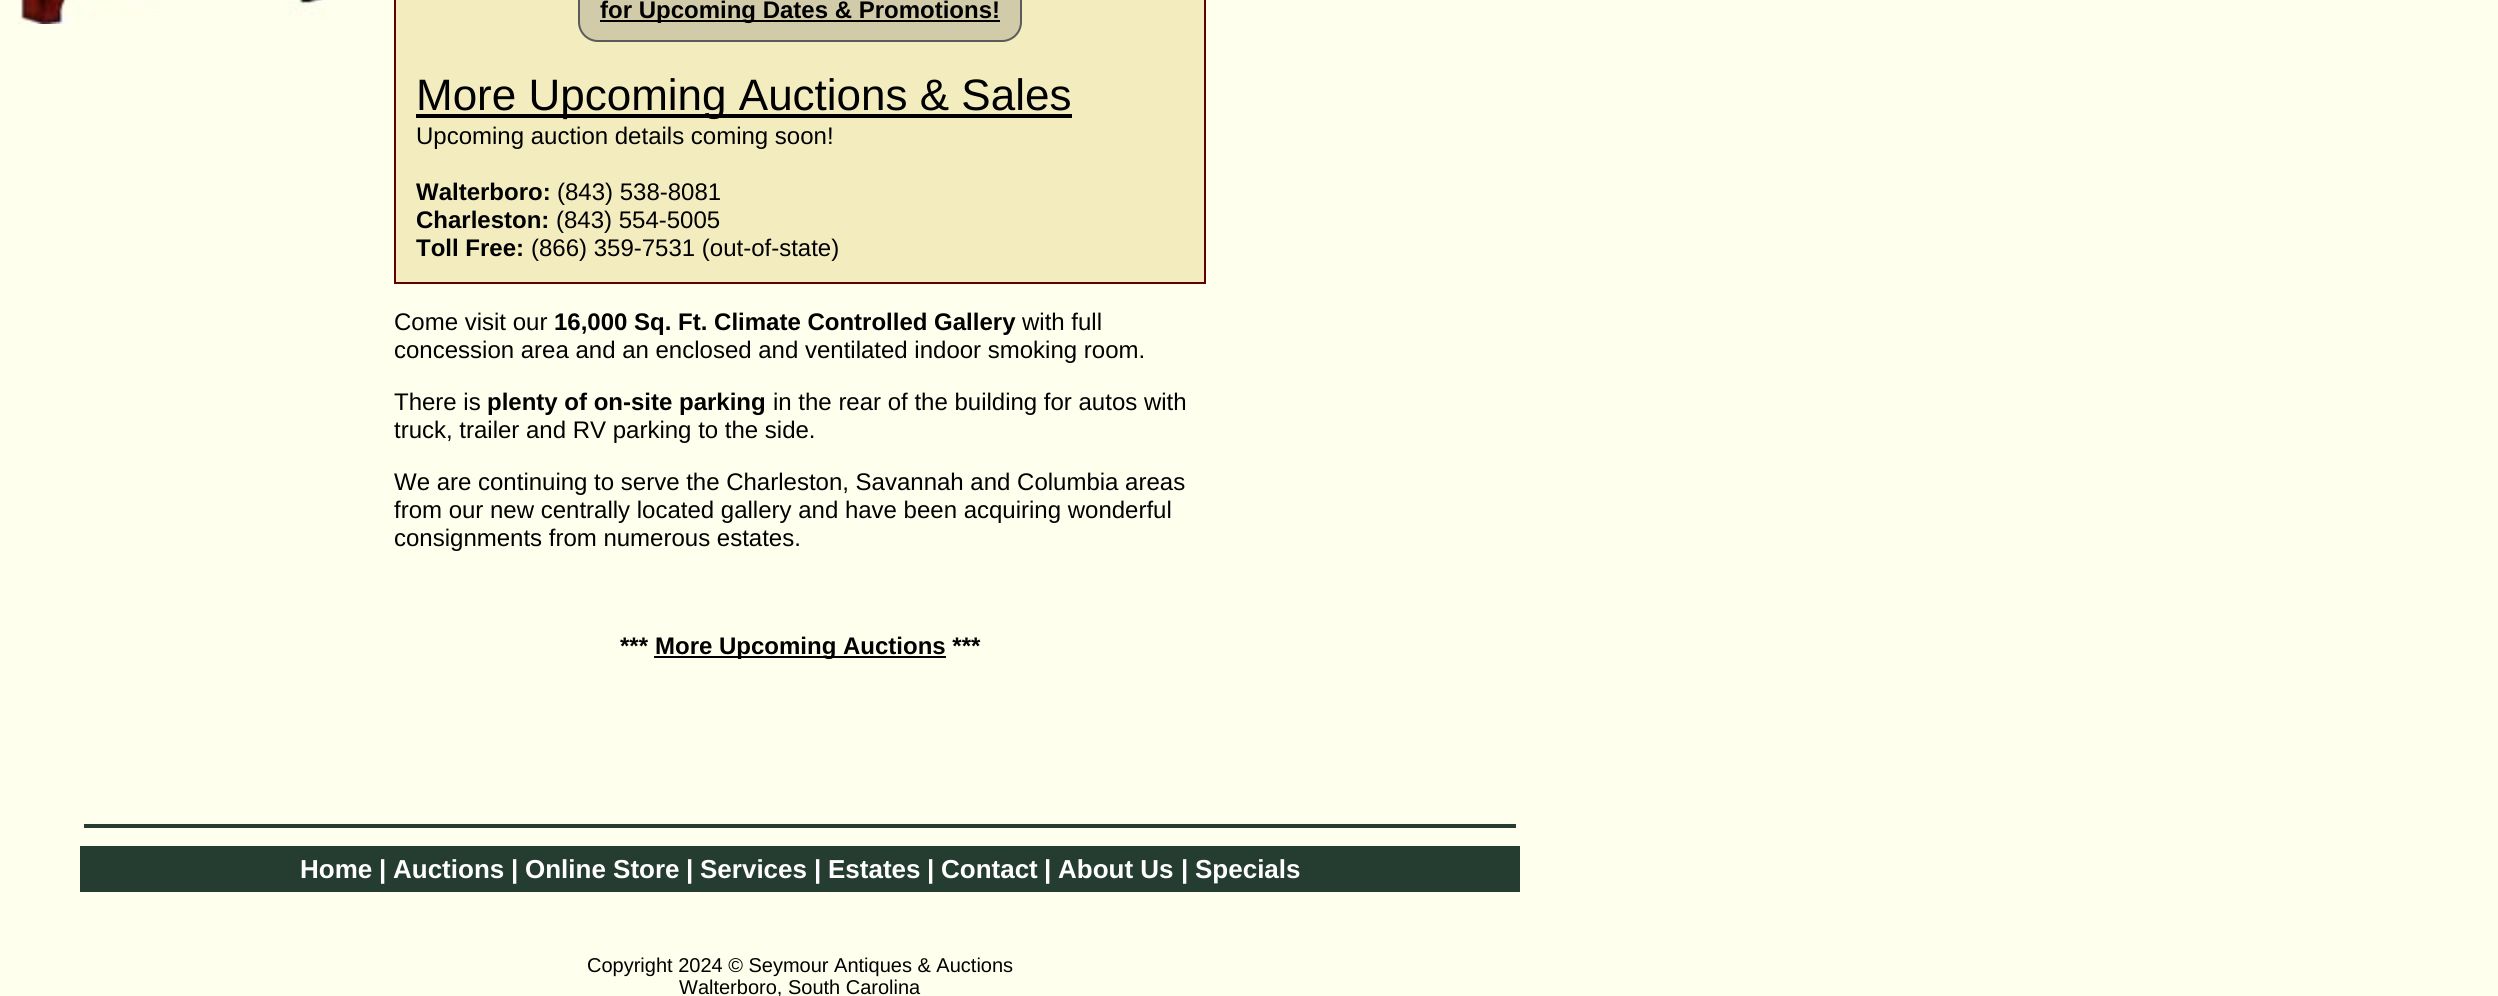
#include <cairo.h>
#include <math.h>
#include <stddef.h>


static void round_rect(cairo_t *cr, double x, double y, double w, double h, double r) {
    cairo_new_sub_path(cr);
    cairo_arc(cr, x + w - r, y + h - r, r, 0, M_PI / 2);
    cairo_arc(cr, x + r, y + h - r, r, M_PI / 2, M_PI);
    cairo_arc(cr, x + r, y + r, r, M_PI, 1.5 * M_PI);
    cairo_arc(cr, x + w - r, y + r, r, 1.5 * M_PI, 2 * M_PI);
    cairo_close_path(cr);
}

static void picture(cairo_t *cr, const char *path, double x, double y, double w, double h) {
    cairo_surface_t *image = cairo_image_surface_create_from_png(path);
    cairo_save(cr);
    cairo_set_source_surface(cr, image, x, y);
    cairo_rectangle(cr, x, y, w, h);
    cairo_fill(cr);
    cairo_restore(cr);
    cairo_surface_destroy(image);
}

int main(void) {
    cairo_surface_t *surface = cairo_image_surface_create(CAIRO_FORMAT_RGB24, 2498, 996);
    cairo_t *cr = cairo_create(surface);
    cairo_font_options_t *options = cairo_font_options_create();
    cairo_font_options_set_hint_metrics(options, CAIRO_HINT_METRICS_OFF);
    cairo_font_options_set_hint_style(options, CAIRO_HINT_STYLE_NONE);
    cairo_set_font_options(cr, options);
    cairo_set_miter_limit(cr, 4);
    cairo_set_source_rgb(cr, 1, 1, 0.929);
    cairo_paint(cr);
    picture(cr, "img1.png", 18, 0, 309, 24);
    cairo_set_source_rgb(cr, 0.949, 0.922, 0.749);
    cairo_rectangle(cr, 395, -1, 810, 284);
    cairo_fill_preserve(cr);
    cairo_set_source_rgb(cr, 0.388, 0, 0);
    cairo_stroke(cr);
    cairo_set_source_rgb(cr, 0.82, 0.796, 0.663);
    round_rect(cr, 579, -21, 442, 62, 19);
    cairo_fill_preserve(cr);
    cairo_set_source_rgb(cr, 0.357, 0.357, 0.357);
    cairo_stroke(cr);
    cairo_set_source_rgb(cr, 0, 0, 0);
    cairo_rectangle(cr, 600, 20, 400, 2);
    cairo_fill(cr);
    cairo_select_font_face(cr, "Liberation Sans", CAIRO_FONT_SLANT_NORMAL, CAIRO_FONT_WEIGHT_BOLD);
    cairo_set_font_size(cr, 24);
    cairo_move_to(cr, 600, 18);
    cairo_show_text(cr, "for Upcoming Dates & Promotions!");
    cairo_rectangle(cr, 416, 114, 656, 4);
    cairo_fill(cr);
    cairo_select_font_face(cr, "Liberation Sans", CAIRO_FONT_SLANT_NORMAL, CAIRO_FONT_WEIGHT_NORMAL);
    cairo_set_font_size(cr, 44);
    cairo_move_to(cr, 416, 110);
    cairo_show_text(cr, "More Upcoming Auctions & Sales");
    cairo_set_font_size(cr, 24);
    cairo_move_to(cr, 416, 144);
    cairo_show_text(cr, "Upcoming auction details coming soon!");
    cairo_select_font_face(cr, "Liberation Sans", CAIRO_FONT_SLANT_NORMAL, CAIRO_FONT_WEIGHT_BOLD);
    cairo_move_to(cr, 416, 200);
    cairo_show_text(cr, "Walterboro:");
    cairo_select_font_face(cr, "Liberation Sans", CAIRO_FONT_SLANT_NORMAL, CAIRO_FONT_WEIGHT_NORMAL);
    cairo_move_to(cr, 557, 200);
    cairo_show_text(cr, "(843) 538-8081");
    cairo_select_font_face(cr, "Liberation Sans", CAIRO_FONT_SLANT_NORMAL, CAIRO_FONT_WEIGHT_BOLD);
    cairo_move_to(cr, 416, 228);
    cairo_show_text(cr, "Charleston:");
    cairo_select_font_face(cr, "Liberation Sans", CAIRO_FONT_SLANT_NORMAL, CAIRO_FONT_WEIGHT_NORMAL);
    cairo_move_to(cr, 556, 228);
    cairo_show_text(cr, "(843) 554-5005");
    cairo_select_font_face(cr, "Liberation Sans", CAIRO_FONT_SLANT_NORMAL, CAIRO_FONT_WEIGHT_BOLD);
    cairo_move_to(cr, 416, 256);
    cairo_show_text(cr, "Toll Free:");
    cairo_select_font_face(cr, "Liberation Sans", CAIRO_FONT_SLANT_NORMAL, CAIRO_FONT_WEIGHT_NORMAL);
    cairo_move_to(cr, 531, 256);
    cairo_show_text(cr, "(866) 359-7531 (out-of-state)");
    cairo_move_to(cr, 394, 330);
    cairo_show_text(cr, "Come visit our");
    cairo_select_font_face(cr, "Liberation Sans", CAIRO_FONT_SLANT_NORMAL, CAIRO_FONT_WEIGHT_BOLD);
    cairo_move_to(cr, 554, 330);
    cairo_show_text(cr, "16,000 Sq. Ft. Climate Controlled Gallery");
    cairo_select_font_face(cr, "Liberation Sans", CAIRO_FONT_SLANT_NORMAL, CAIRO_FONT_WEIGHT_NORMAL);
    cairo_move_to(cr, 1022, 330);
    cairo_show_text(cr, "with full");
    cairo_move_to(cr, 394, 358);
    cairo_show_text(cr, "concession area and an enclosed and ventilated indoor smoking room.");
    cairo_move_to(cr, 394, 410);
    cairo_show_text(cr, "There is");
    cairo_select_font_face(cr, "Liberation Sans", CAIRO_FONT_SLANT_NORMAL, CAIRO_FONT_WEIGHT_BOLD);
    cairo_move_to(cr, 487, 410);
    cairo_show_text(cr, "plenty of on-site parking");
    cairo_select_font_face(cr, "Liberation Sans", CAIRO_FONT_SLANT_NORMAL, CAIRO_FONT_WEIGHT_NORMAL);
    cairo_move_to(cr, 773, 410);
    cairo_show_text(cr, "in the rear of the building for autos with");
    cairo_move_to(cr, 394, 438);
    cairo_show_text(cr, "truck, trailer and RV parking to the side.");
    cairo_move_to(cr, 394, 490);
    cairo_show_text(cr, "We are continuing to serve the Charleston, Savannah and Columbia areas");
    cairo_move_to(cr, 394, 518);
    cairo_show_text(cr, "from our new centrally located gallery and have been acquiring wonderful");
    cairo_move_to(cr, 394, 546);
    cairo_show_text(cr, "consignments from numerous estates.");
    cairo_select_font_face(cr, "Liberation Sans", CAIRO_FONT_SLANT_NORMAL, CAIRO_FONT_WEIGHT_BOLD);
    cairo_move_to(cr, 620, 654);
    cairo_show_text(cr, "***");
    cairo_rectangle(cr, 654, 656, 292, 2);
    cairo_fill(cr);
    cairo_move_to(cr, 655, 654);
    cairo_show_text(cr, "More Upcoming Auctions ***");
    cairo_set_source_rgb(cr, 0.145, 0.235, 0.192);
    cairo_rectangle(cr, 84, 824, 1432, 4);
    cairo_fill(cr);
    cairo_rectangle(cr, 80, 846, 1440, 46);
    cairo_fill(cr);
    cairo_set_font_size(cr, 26);
    cairo_set_source_rgb(cr, 1, 1, 1);
    cairo_move_to(cr, 300, 878);
    cairo_show_text(cr, "Home");
    cairo_move_to(cr, 379, 878);
    cairo_show_text(cr, "|");
    cairo_move_to(cr, 393, 878);
    cairo_show_text(cr, "Auctions");
    cairo_move_to(cr, 511, 878);
    cairo_show_text(cr, "|");
    cairo_move_to(cr, 525, 878);
    cairo_show_text(cr, "Online Store");
    cairo_move_to(cr, 686, 878);
    cairo_show_text(cr, "|");
    cairo_move_to(cr, 700, 878);
    cairo_show_text(cr, "Services");
    cairo_move_to(cr, 814, 878);
    cairo_show_text(cr, "|");
    cairo_move_to(cr, 828, 878);
    cairo_show_text(cr, "Estates");
    cairo_move_to(cr, 927, 878);
    cairo_show_text(cr, "|");
    cairo_move_to(cr, 941, 878);
    cairo_show_text(cr, "Contact");
    cairo_move_to(cr, 1044, 878);
    cairo_show_text(cr, "|");
    cairo_move_to(cr, 1058, 878);
    cairo_show_text(cr, "About Us");
    cairo_move_to(cr, 1181, 878);
    cairo_show_text(cr, "|");
    cairo_move_to(cr, 1195, 878);
    cairo_show_text(cr, "Specials");
    cairo_select_font_face(cr, "Liberation Sans", CAIRO_FONT_SLANT_NORMAL, CAIRO_FONT_WEIGHT_NORMAL);
    cairo_set_font_size(cr, 20);
    cairo_set_source_rgb(cr, 0, 0, 0);
    cairo_move_to(cr, 587, 972);
    cairo_show_text(cr, "Copyright 2024 © Seymour Antiques & Auctions");
    cairo_move_to(cr, 679, 994);
    cairo_show_text(cr, "Walterboro, South Carolina");
    cairo_surface_write_to_png(surface, "page.png");
    cairo_font_options_destroy(options);
    cairo_destroy(cr);
    cairo_surface_destroy(surface);
    return 0;
}
